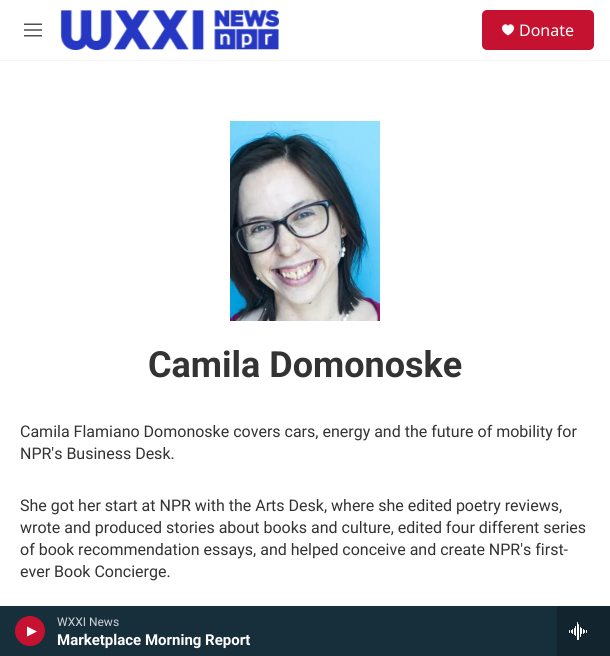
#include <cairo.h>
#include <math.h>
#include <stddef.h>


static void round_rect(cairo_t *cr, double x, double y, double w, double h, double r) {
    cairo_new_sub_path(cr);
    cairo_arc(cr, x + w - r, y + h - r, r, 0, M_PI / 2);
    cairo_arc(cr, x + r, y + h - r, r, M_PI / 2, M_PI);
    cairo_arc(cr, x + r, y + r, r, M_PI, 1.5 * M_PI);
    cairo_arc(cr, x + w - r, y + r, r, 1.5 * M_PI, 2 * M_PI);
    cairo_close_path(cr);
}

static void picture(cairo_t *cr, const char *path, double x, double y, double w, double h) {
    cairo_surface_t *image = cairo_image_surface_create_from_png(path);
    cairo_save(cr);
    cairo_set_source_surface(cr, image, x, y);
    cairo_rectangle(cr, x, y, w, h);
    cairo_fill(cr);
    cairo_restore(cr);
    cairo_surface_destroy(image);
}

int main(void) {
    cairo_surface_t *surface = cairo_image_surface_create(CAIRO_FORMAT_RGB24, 610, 656);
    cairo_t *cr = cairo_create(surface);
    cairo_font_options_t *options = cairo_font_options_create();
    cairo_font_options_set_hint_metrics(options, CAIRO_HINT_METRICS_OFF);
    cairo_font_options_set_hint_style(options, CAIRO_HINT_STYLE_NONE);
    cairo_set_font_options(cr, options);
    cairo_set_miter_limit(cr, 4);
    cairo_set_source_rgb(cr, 1, 1, 1);
    cairo_paint(cr);
    cairo_set_source_rgb(cr, 0.961, 0.961, 0.961);
    cairo_rectangle(cr, 0, 60, 610, 1);
    cairo_fill(cr);
    picture(cr, "img1.png", 24, 23, 18, 14);
    picture(cr, "img2.png", 60, 10, 219, 40);
    cairo_set_source_rgb(cr, 0.769, 0.071, 0.188);
    round_rect(cr, 482, 10, 112, 40, 5);
    cairo_fill(cr);
    cairo_set_source_rgb(cr, 1, 1, 1);
    cairo_new_path(cr);
    cairo_move_to(cr, 508, 26);
    cairo_curve_to(cr, 506, 21, 495.5, 28, 508, 35.5);
    cairo_curve_to(cr, 520.5, 28, 510, 21, 508, 26);
    cairo_close_path(cr);
    cairo_fill(cr);
    cairo_select_font_face(cr, "Noto Sans", CAIRO_FONT_SLANT_NORMAL, CAIRO_FONT_WEIGHT_NORMAL);
    cairo_set_font_size(cr, 16);
    cairo_move_to(cr, 519, 36);
    cairo_show_text(cr, "Donate");
    cairo_set_source_rgb(cr, 0.09, 0.18, 0.231);
    cairo_rectangle(cr, 0, 606, 557, 50);
    cairo_fill(cr);
    cairo_set_source_rgb(cr, 0.769, 0.071, 0.188);
    cairo_arc(cr, 30, 631, 15, 0, 2 * M_PI);
    cairo_fill(cr);
    cairo_set_source_rgb(cr, 1, 1, 1);
    cairo_new_path(cr);
    cairo_move_to(cr, 27, 626.5);
    cairo_line_to(cr, 37, 631.5);
    cairo_line_to(cr, 27, 636.5);
    cairo_close_path(cr);
    cairo_fill(cr);
    cairo_select_font_face(cr, "Roboto", CAIRO_FONT_SLANT_NORMAL, CAIRO_FONT_WEIGHT_NORMAL);
    cairo_set_font_size(cr, 12);
    cairo_set_source_rgb(cr, 0.82, 0.835, 0.847);
    cairo_move_to(cr, 57, 626);
    cairo_show_text(cr, "WXXI News");
    cairo_select_font_face(cr, "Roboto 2", CAIRO_FONT_SLANT_NORMAL, CAIRO_FONT_WEIGHT_BOLD);
    cairo_set_font_size(cr, 15);
    cairo_set_source_rgb(cr, 1, 1, 1);
    cairo_move_to(cr, 57, 645);
    cairo_show_text(cr, "Marketplace Morning Report");
    cairo_set_source_rgb(cr, 0.071, 0.145, 0.184);
    cairo_rectangle(cr, 557, 606, 53, 50);
    cairo_fill(cr);
    picture(cr, "img3.png", 569, 622, 18, 18);
    picture(cr, "img4.png", 230, 121, 150, 200);
    cairo_select_font_face(cr, "Roboto", CAIRO_FONT_SLANT_NORMAL, CAIRO_FONT_WEIGHT_BOLD);
    cairo_set_font_size(cr, 36);
    cairo_set_source_rgb(cr, 0.2, 0.2, 0.2);
    cairo_move_to(cr, 148, 377);
    cairo_show_text(cr, "Camila Domonoske");
    cairo_select_font_face(cr, "Roboto", CAIRO_FONT_SLANT_NORMAL, CAIRO_FONT_WEIGHT_NORMAL);
    cairo_set_font_size(cr, 16);
    cairo_move_to(cr, 20, 437);
    cairo_show_text(cr, "Camila Flamiano Domonoske covers cars, energy and the future of mobility for");
    cairo_move_to(cr, 20, 459);
    cairo_show_text(cr, "NPR's Business Desk.");
    cairo_move_to(cr, 20, 511);
    cairo_show_text(cr, "She got her start at NPR with the Arts Desk, where she edited poetry reviews,");
    cairo_move_to(cr, 20, 533);
    cairo_show_text(cr, "wrote and produced stories about books and culture, edited four different series");
    cairo_move_to(cr, 20, 555);
    cairo_show_text(cr, "of book recommendation essays, and helped conceive and create NPR's first-");
    cairo_move_to(cr, 20, 577);
    cairo_show_text(cr, "ever Book Concierge.");
    cairo_surface_write_to_png(surface, "page.png");
    cairo_font_options_destroy(options);
    cairo_destroy(cr);
    cairo_surface_destroy(surface);
    return 0;
}
